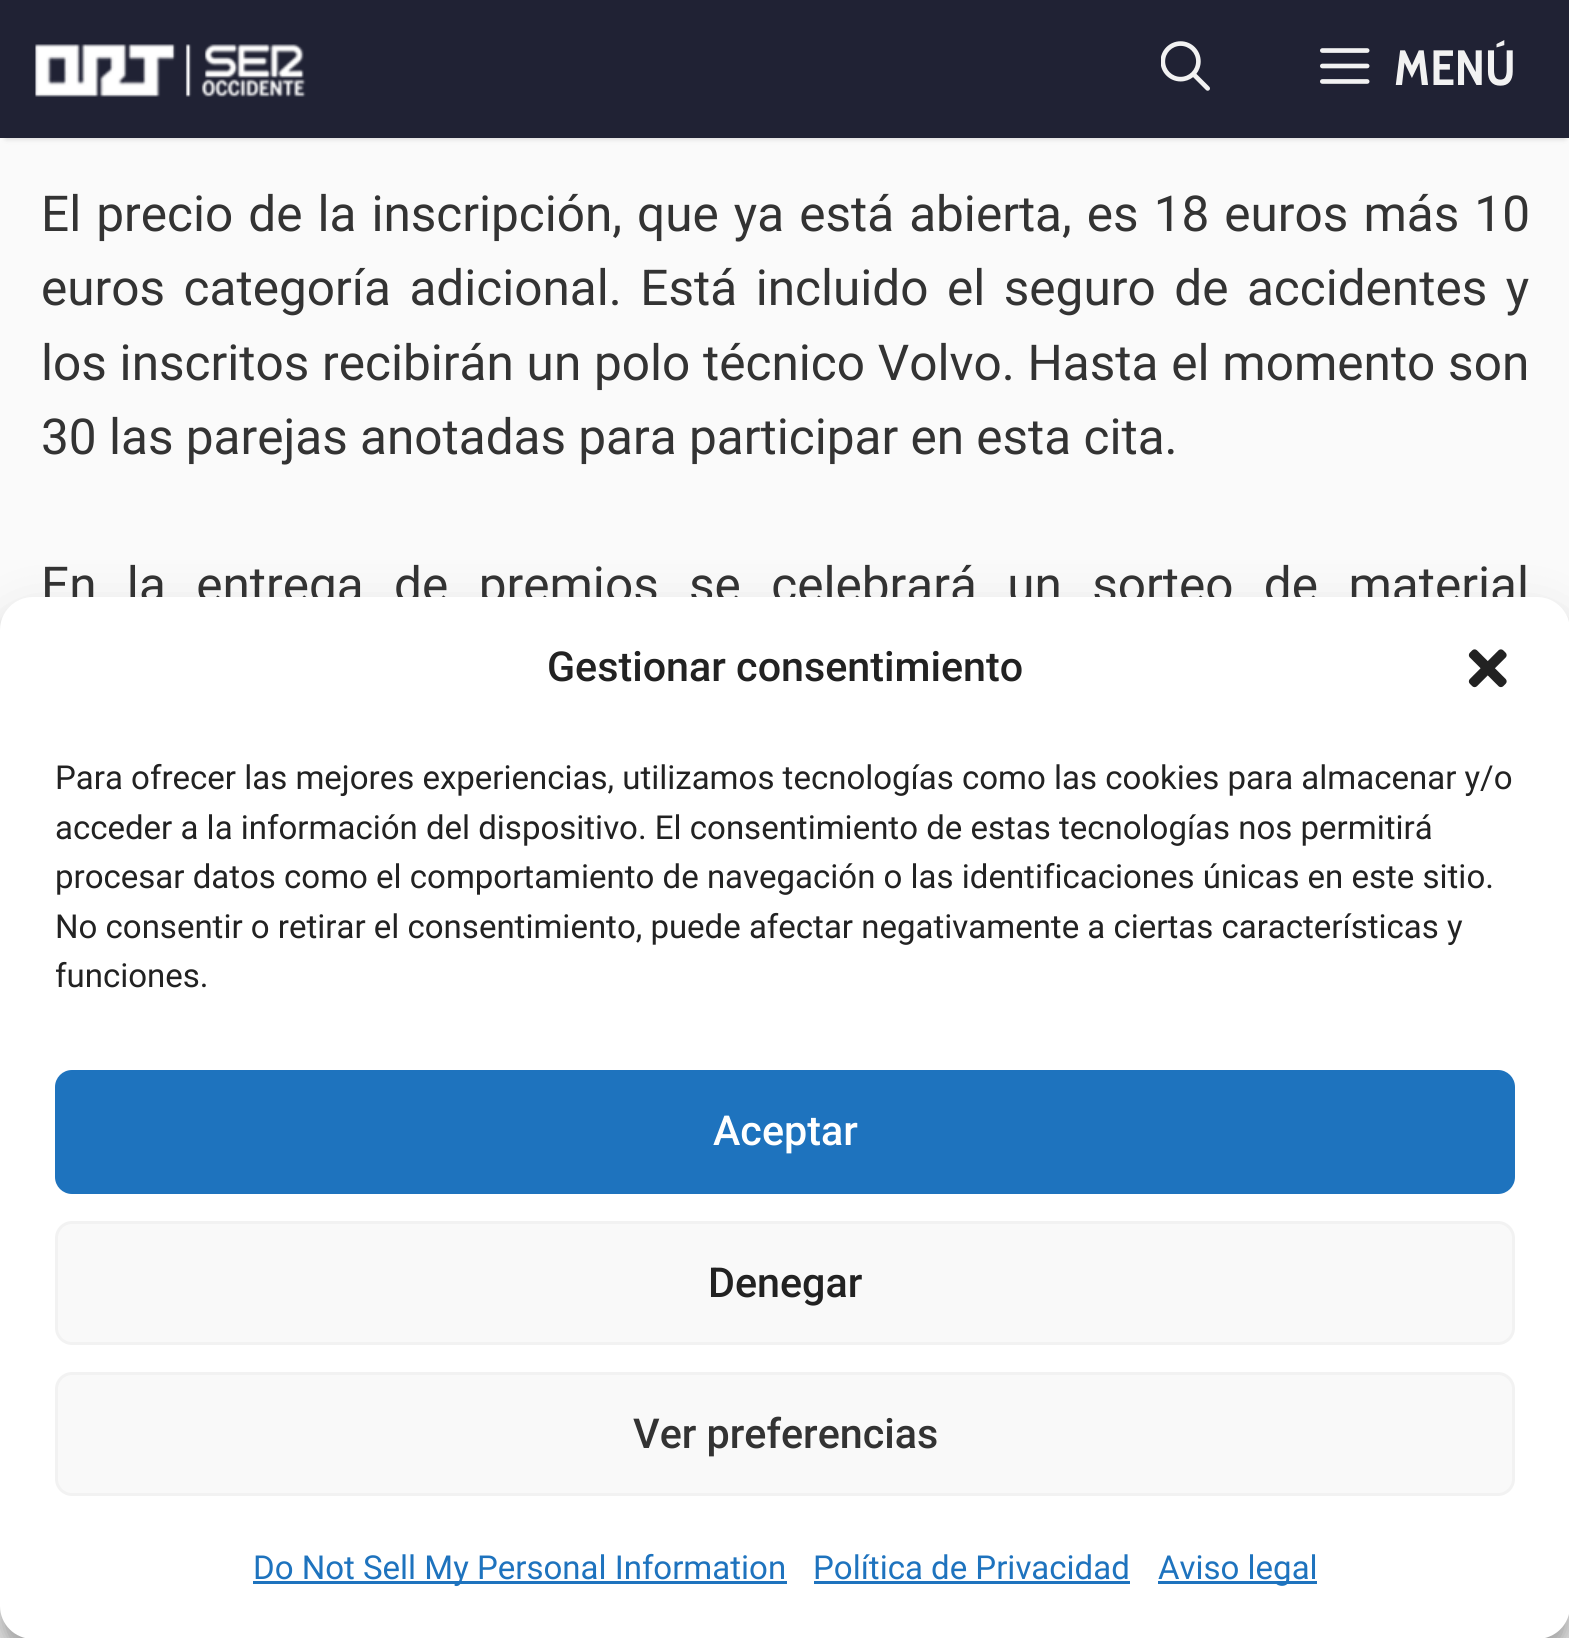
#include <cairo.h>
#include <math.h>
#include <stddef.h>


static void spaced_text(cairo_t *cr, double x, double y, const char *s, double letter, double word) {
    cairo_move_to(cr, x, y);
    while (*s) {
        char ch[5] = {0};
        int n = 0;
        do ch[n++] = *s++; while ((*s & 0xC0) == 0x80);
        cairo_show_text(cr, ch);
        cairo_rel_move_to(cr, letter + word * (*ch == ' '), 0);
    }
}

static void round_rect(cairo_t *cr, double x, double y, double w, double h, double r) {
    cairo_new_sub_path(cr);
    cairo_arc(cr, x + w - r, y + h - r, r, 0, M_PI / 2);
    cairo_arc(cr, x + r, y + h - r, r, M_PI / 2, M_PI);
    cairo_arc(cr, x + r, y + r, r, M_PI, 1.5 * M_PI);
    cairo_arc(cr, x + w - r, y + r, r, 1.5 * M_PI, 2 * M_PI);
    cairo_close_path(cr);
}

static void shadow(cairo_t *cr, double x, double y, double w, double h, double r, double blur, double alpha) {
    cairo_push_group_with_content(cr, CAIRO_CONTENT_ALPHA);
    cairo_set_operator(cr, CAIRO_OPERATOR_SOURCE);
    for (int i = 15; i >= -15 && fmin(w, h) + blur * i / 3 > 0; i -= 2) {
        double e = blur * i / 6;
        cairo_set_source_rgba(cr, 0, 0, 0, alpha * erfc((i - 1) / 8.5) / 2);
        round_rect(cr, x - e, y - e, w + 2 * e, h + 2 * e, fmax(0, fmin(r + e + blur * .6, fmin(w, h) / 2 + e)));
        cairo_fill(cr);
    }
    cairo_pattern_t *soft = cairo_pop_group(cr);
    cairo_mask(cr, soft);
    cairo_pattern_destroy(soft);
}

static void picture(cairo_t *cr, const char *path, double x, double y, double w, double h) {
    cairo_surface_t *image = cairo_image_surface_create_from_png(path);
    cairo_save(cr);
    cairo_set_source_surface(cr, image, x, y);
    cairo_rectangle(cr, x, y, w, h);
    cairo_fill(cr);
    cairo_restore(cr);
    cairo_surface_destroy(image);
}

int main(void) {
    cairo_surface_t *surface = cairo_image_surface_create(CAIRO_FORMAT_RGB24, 1569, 1638);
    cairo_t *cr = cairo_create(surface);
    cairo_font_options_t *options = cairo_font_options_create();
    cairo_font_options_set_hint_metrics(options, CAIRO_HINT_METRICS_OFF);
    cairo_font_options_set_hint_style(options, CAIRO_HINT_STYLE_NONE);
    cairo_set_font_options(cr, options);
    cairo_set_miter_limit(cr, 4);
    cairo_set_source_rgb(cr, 0.98, 0.98, 0.98);
    cairo_paint(cr);
    cairo_set_source_rgb(cr, 0, 0, 0);
    shadow(cr, 6, 11, 1559, 127, 0, 3, 0.2);
    cairo_set_source_rgb(cr, 0.125, 0.133, 0.204);
    cairo_rectangle(cr, 0, 0, 1569, 138);
    cairo_fill(cr);
    picture(cr, "img1.png", 35, 44, 271, 53);
    picture(cr, "img2.png", 1161, 41, 49, 50);
    picture(cr, "img3.png", 1320, 48, 50, 36);
    cairo_select_font_face(cr, "Cabin Condensed", CAIRO_FONT_SLANT_NORMAL, CAIRO_FONT_WEIGHT_BOLD);
    cairo_set_font_size(cr, 49.5);
    cairo_set_source_rgb(cr, 0.949, 0.949, 0.949);
    cairo_move_to(cr, 1394, 85);
    cairo_show_text(cr, "MENÚ");
    cairo_select_font_face(cr, "Roboto", CAIRO_FONT_SLANT_NORMAL, CAIRO_FONT_WEIGHT_NORMAL);
    cairo_set_source_rgb(cr, 0.2, 0.2, 0.2);
    spaced_text(cr, 41, 231, "El precio de la inscripción, que ya está abierta, es 18 euros más 10", 0, 2.75);
    spaced_text(cr, 41, 305, "euros categoría adicional. Está incluido el seguro de accidentes y", 0, 6.25);
    spaced_text(cr, 41, 380, "los inscritos recibirán un polo técnico Volvo. Hasta el momento son", 0, 0.5);
    cairo_move_to(cr, 41, 454);
    cairo_show_text(cr, "30 las parejas anotadas para participar en esta cita.");
    spaced_text(cr, 41, 602, "En la entrega de premios se celebrará un sorteo de material", 0, 18.1);
    cairo_set_source_rgb(cr, 0, 0, 0);
    shadow(cr, 0, 613, 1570, 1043, 33, 8, 0.23);
    shadow(cr, 0, 624, 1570, 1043, 33, 27.5, 0.19);
    cairo_set_source_rgb(cr, 1, 1, 1);
    round_rect(cr, 0, 597, 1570, 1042, 33);
    cairo_fill(cr);
    cairo_select_font_face(cr, "Roboto Medium", CAIRO_FONT_SLANT_NORMAL, CAIRO_FONT_WEIGHT_NORMAL);
    cairo_set_font_size(cr, 41.25);
    cairo_set_source_rgb(cr, 0.133, 0.133, 0.133);
    cairo_move_to(cr, 547, 681);
    cairo_show_text(cr, "Gestionar consentimiento");
    picture(cr, "img4.png", 1468, 649, 39, 39);
    cairo_select_font_face(cr, "Roboto", CAIRO_FONT_SLANT_NORMAL, CAIRO_FONT_WEIGHT_NORMAL);
    cairo_set_font_size(cr, 33);
    cairo_move_to(cr, 55, 789);
    cairo_show_text(cr, "Para ofrecer las mejores experiencias, utilizamos tecnologías como las cookies para almacenar y/o");
    cairo_move_to(cr, 55, 839);
    cairo_show_text(cr, "acceder a la información del dispositivo. El consentimiento de estas tecnologías nos permitirá");
    cairo_move_to(cr, 55, 888);
    cairo_show_text(cr, "procesar datos como el comportamiento de navegación o las identificaciones únicas en este sitio.");
    cairo_move_to(cr, 55, 938);
    cairo_show_text(cr, "No consentir o retirar el consentimiento, puede afectar negativamente a ciertas características y");
    cairo_move_to(cr, 55, 987);
    cairo_show_text(cr, "funciones.");
    cairo_set_source_rgb(cr, 0.118, 0.451, 0.745);
    round_rect(cr, 56.5, 1071.5, 1457, 121, 15.5);
    cairo_fill_preserve(cr);
    cairo_set_line_width(cr, 3);
    cairo_stroke(cr);
    cairo_select_font_face(cr, "Roboto Medium", CAIRO_FONT_SLANT_NORMAL, CAIRO_FONT_WEIGHT_NORMAL);
    cairo_set_font_size(cr, 41.25);
    cairo_set_source_rgb(cr, 1, 1, 1);
    cairo_move_to(cr, 713, 1145);
    cairo_show_text(cr, "Aceptar");
    cairo_set_source_rgb(cr, 0.976, 0.976, 0.976);
    round_rect(cr, 56.5, 1222.5, 1457, 121, 15.5);
    cairo_fill_preserve(cr);
    cairo_set_source_rgb(cr, 0.949, 0.949, 0.949);
    cairo_stroke(cr);
    cairo_set_source_rgb(cr, 0.133, 0.133, 0.133);
    cairo_move_to(cr, 708, 1297);
    cairo_show_text(cr, "Denegar");
    cairo_set_source_rgb(cr, 0.976, 0.976, 0.976);
    round_rect(cr, 56.5, 1373.5, 1457, 121, 15.5);
    cairo_fill_preserve(cr);
    cairo_set_source_rgb(cr, 0.949, 0.949, 0.949);
    cairo_stroke(cr);
    cairo_set_source_rgb(cr, 0.2, 0.2, 0.2);
    cairo_move_to(cr, 633, 1448);
    cairo_show_text(cr, "Ver preferencias");
    cairo_set_source_rgb(cr, 0.118, 0.451, 0.745);
    cairo_rectangle(cr, 253, 1581, 534, 3);
    cairo_fill(cr);
    cairo_select_font_face(cr, "Roboto", CAIRO_FONT_SLANT_NORMAL, CAIRO_FONT_WEIGHT_NORMAL);
    cairo_set_font_size(cr, 33);
    cairo_move_to(cr, 253, 1579);
    cairo_show_text(cr, "Do Not Sell My Personal Information");
    cairo_move_to(cr, 813, 1579);
    cairo_show_text(cr, "Política de Privacidad");
    cairo_rectangle(cr, 814, 1581, 316, 3);
    cairo_fill(cr);
    cairo_rectangle(cr, 1158, 1581, 159, 3);
    cairo_fill(cr);
    cairo_move_to(cr, 1158, 1579);
    cairo_show_text(cr, "Aviso legal");
    cairo_surface_write_to_png(surface, "page.png");
    cairo_font_options_destroy(options);
    cairo_destroy(cr);
    cairo_surface_destroy(surface);
    return 0;
}
